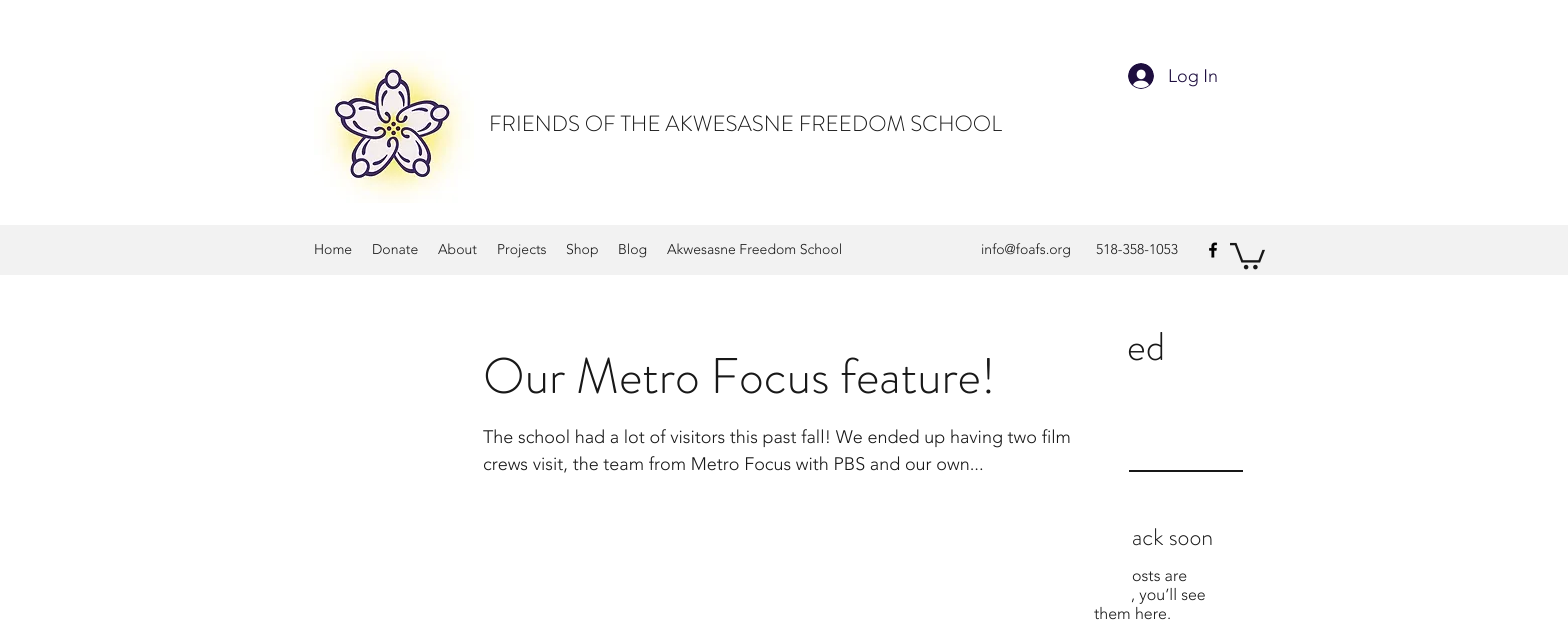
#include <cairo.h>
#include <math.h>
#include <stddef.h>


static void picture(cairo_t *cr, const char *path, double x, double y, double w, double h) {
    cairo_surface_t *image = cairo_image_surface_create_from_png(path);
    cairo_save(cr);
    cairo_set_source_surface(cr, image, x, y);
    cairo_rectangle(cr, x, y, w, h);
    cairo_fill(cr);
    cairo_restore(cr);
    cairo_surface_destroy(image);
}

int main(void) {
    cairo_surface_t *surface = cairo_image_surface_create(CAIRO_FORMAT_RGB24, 1568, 635);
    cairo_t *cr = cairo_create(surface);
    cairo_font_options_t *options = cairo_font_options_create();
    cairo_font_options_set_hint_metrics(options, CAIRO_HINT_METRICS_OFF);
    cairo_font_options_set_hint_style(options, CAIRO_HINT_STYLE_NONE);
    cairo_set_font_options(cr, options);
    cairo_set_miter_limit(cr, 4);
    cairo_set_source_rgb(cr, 1, 1, 1);
    cairo_paint(cr);
    picture(cr, "img1.png", 314, 51, 160, 152);
    picture(cr, "img2.png", 1128, 63, 26, 26);
    cairo_select_font_face(cr, "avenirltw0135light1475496 Light", CAIRO_FONT_SLANT_NORMAL, CAIRO_FONT_WEIGHT_NORMAL);
    cairo_set_font_size(cr, 18);
    cairo_set_source_rgb(cr, 0.118, 0.055, 0.247);
    cairo_move_to(cr, 1168, 82);
    cairo_show_text(cr, "Log In");
    cairo_select_font_face(cr, "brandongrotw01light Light", CAIRO_FONT_SLANT_NORMAL, CAIRO_FONT_WEIGHT_NORMAL);
    cairo_set_font_size(cr, 22);
    cairo_set_source_rgb(cr, 0.094, 0.094, 0.094);
    cairo_move_to(cr, 489, 131);
    cairo_show_text(cr, "FRIENDS OF THE AKWESASNE FREEDOM SCHOOL");
    cairo_set_source_rgb(cr, 0.949, 0.949, 0.949);
    cairo_rectangle(cr, 0, 225, 1568, 50);
    cairo_fill(cr);
    cairo_select_font_face(cr, "avenirltw0135light1475496 Light", CAIRO_FONT_SLANT_NORMAL, CAIRO_FONT_WEIGHT_NORMAL);
    cairo_set_font_size(cr, 14);
    cairo_set_source_rgb(cr, 0.094, 0.094, 0.094);
    cairo_move_to(cr, 314, 254);
    cairo_show_text(cr, "Home");
    cairo_move_to(cr, 372, 254);
    cairo_show_text(cr, "Donate");
    cairo_move_to(cr, 438, 254);
    cairo_show_text(cr, "About");
    cairo_move_to(cr, 497, 254);
    cairo_show_text(cr, "Projects");
    cairo_move_to(cr, 566, 254);
    cairo_show_text(cr, "Shop");
    cairo_move_to(cr, 618, 254);
    cairo_show_text(cr, "Blog");
    cairo_move_to(cr, 667, 254);
    cairo_show_text(cr, "Akwesasne Freedom School");
    cairo_move_to(cr, 981, 254);
    cairo_show_text(cr, "info@foafs.org");
    cairo_move_to(cr, 1096, 254);
    cairo_show_text(cr, "518-358-1053");
    picture(cr, "img3.png", 1209, 242, 9, 16);
    picture(cr, "img4.png", 1230, 242, 35, 28);
    cairo_select_font_face(cr, "brandongrotw01light Light", CAIRO_FONT_SLANT_NORMAL, CAIRO_FONT_WEIGHT_NORMAL);
    cairo_set_font_size(cr, 50);
    cairo_move_to(cr, 483, 393);
    cairo_show_text(cr, "Our Metro Focus feature!");
    cairo_select_font_face(cr, "avenirltw0135light1475496 Light", CAIRO_FONT_SLANT_NORMAL, CAIRO_FONT_WEIGHT_NORMAL);
    cairo_set_font_size(cr, 18);
    cairo_move_to(cr, 483, 443);
    cairo_show_text(cr, "The school had a lot of visitors this past fall! We ended up having two film");
    cairo_move_to(cr, 483, 470);
    cairo_show_text(cr, "crews visit, the team from Metro Focus with PBS and our own...");
    cairo_select_font_face(cr, "brandongrotw01light Light", CAIRO_FONT_SLANT_NORMAL, CAIRO_FONT_WEIGHT_NORMAL);
    cairo_set_font_size(cr, 40);
    cairo_move_to(cr, 1127, 360);
    cairo_show_text(cr, "ed");
    cairo_rectangle(cr, 1129, 470, 114, 2);
    cairo_fill(cr);
    cairo_set_font_size(cr, 24);
    cairo_move_to(cr, 1132, 545);
    cairo_show_text(cr, "ack soon");
    cairo_select_font_face(cr, "avenirltw0135light1475496 Light", CAIRO_FONT_SLANT_NORMAL, CAIRO_FONT_WEIGHT_NORMAL);
    cairo_set_font_size(cr, 16);
    cairo_move_to(cr, 1132, 581);
    cairo_show_text(cr, "osts are");
    cairo_move_to(cr, 1131, 600);
    cairo_show_text(cr, ", you’ll see");
    cairo_move_to(cr, 1094, 619);
    cairo_show_text(cr, "them here.");
    cairo_surface_write_to_png(surface, "page.png");
    cairo_font_options_destroy(options);
    cairo_destroy(cr);
    cairo_surface_destroy(surface);
    return 0;
}
